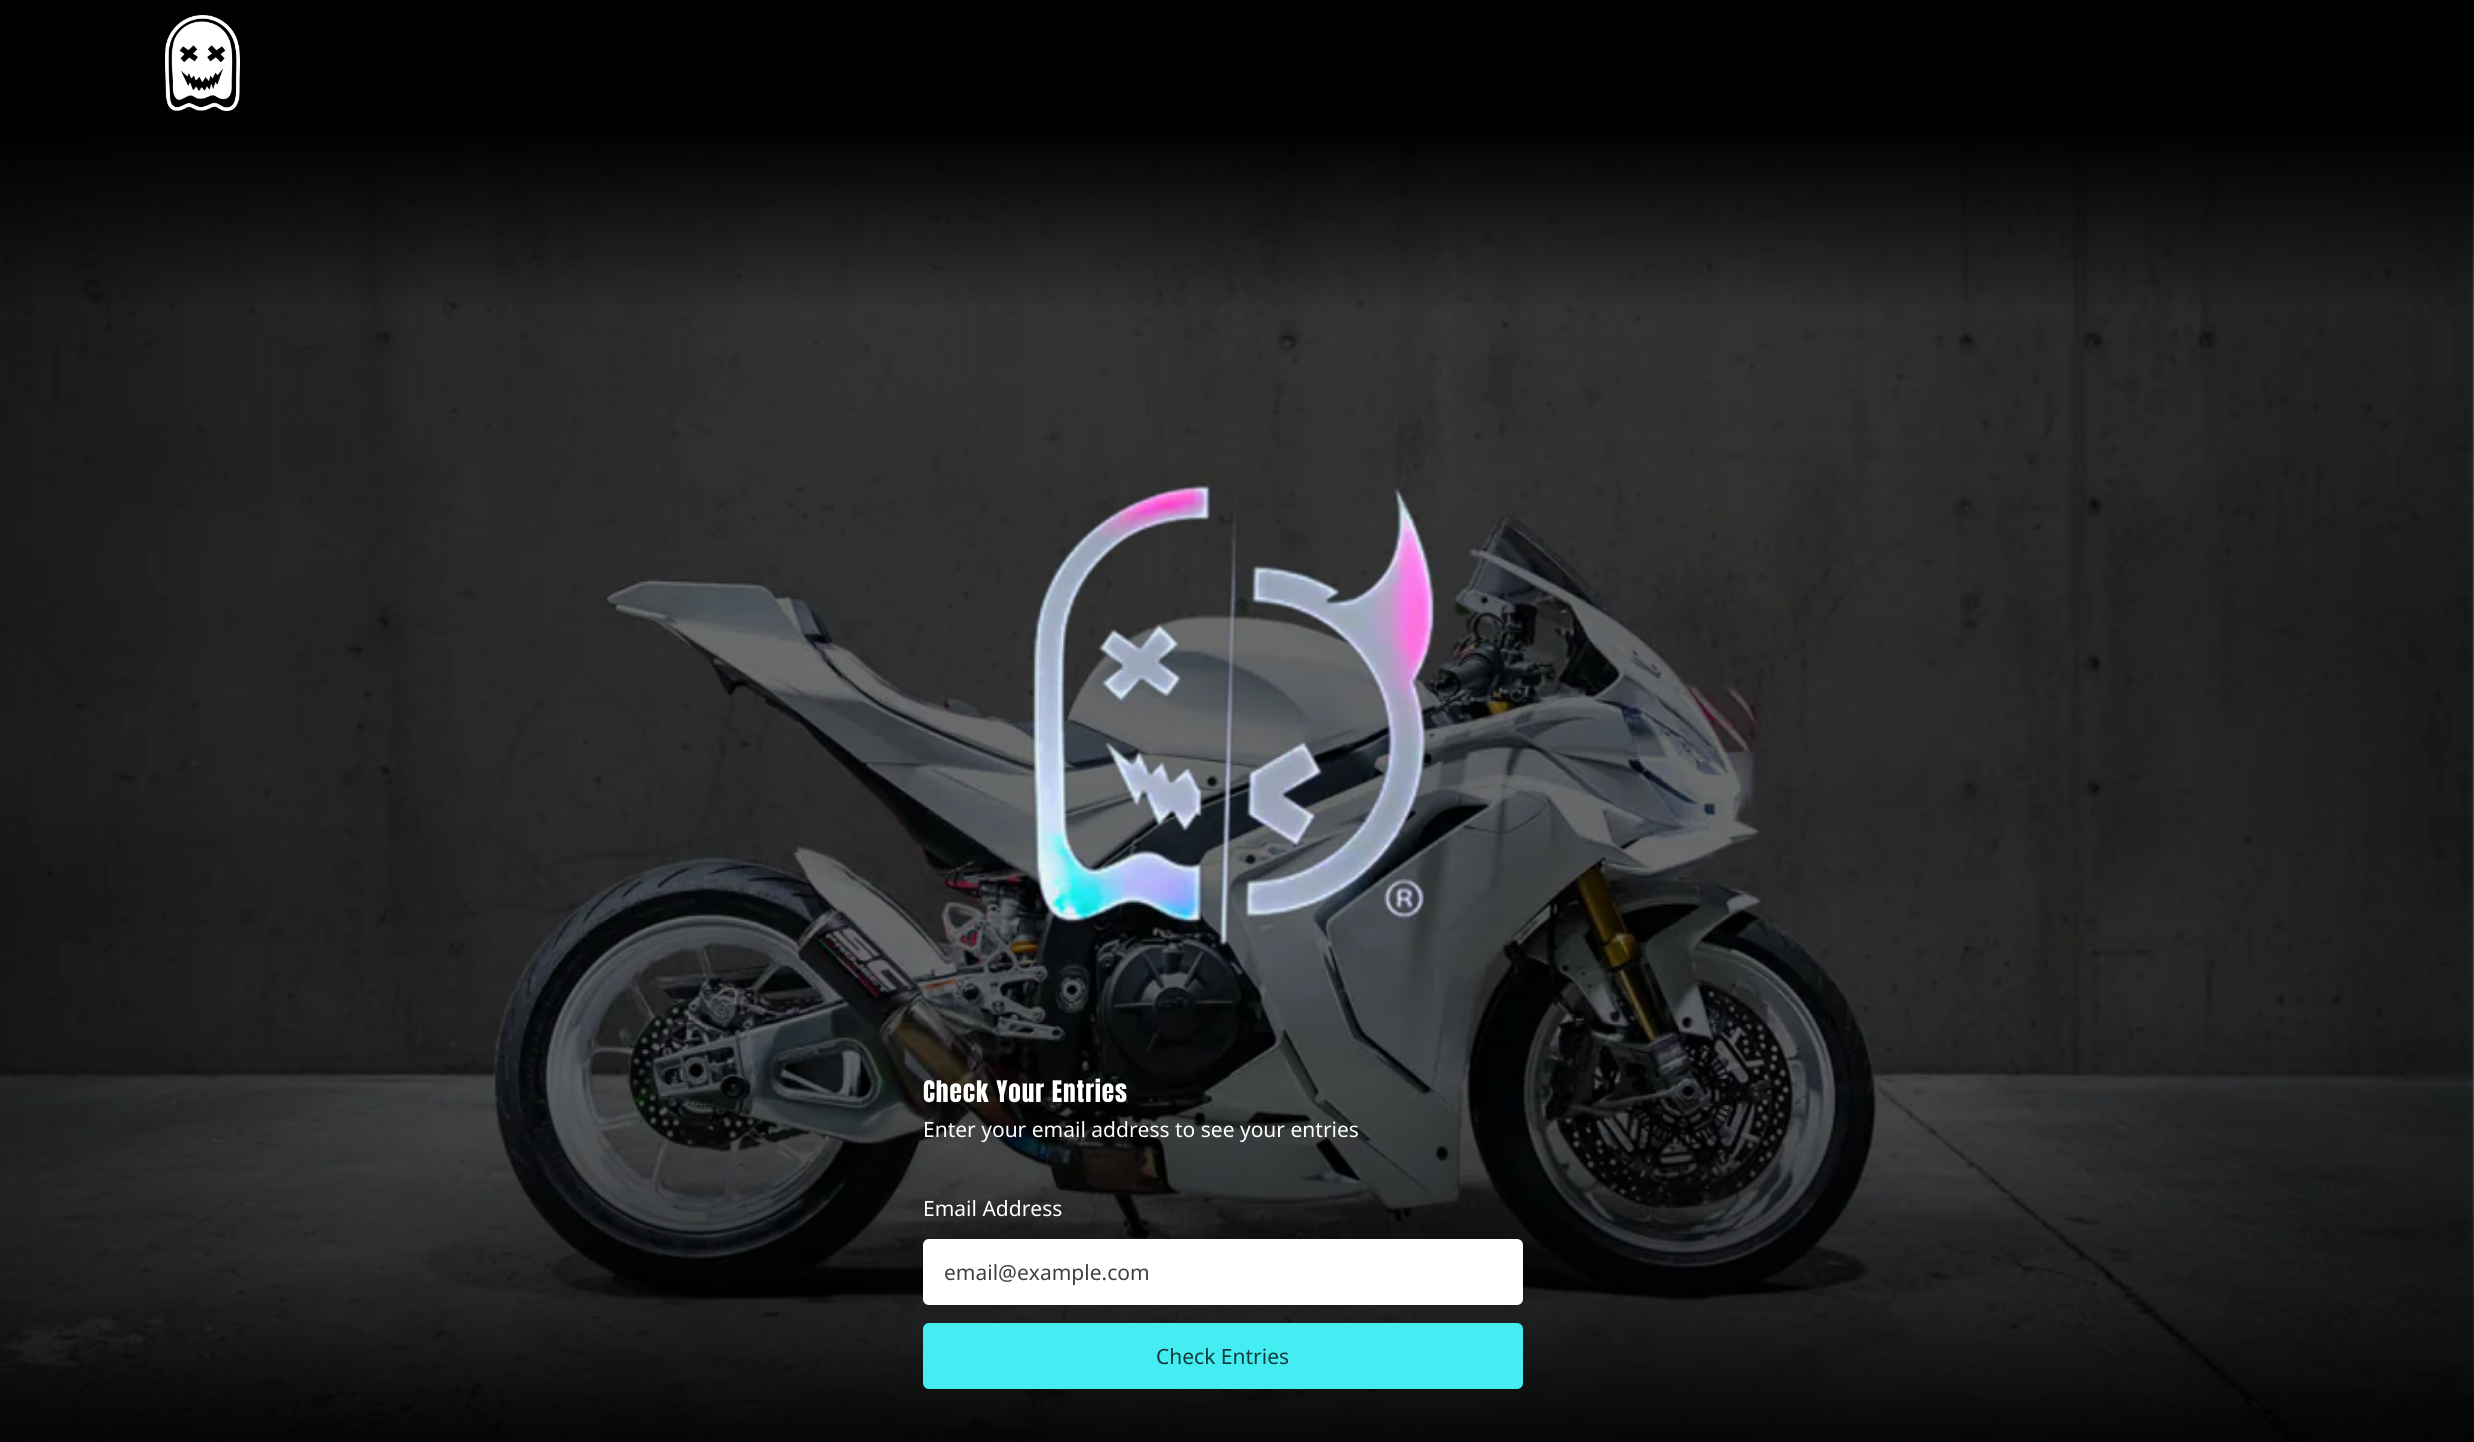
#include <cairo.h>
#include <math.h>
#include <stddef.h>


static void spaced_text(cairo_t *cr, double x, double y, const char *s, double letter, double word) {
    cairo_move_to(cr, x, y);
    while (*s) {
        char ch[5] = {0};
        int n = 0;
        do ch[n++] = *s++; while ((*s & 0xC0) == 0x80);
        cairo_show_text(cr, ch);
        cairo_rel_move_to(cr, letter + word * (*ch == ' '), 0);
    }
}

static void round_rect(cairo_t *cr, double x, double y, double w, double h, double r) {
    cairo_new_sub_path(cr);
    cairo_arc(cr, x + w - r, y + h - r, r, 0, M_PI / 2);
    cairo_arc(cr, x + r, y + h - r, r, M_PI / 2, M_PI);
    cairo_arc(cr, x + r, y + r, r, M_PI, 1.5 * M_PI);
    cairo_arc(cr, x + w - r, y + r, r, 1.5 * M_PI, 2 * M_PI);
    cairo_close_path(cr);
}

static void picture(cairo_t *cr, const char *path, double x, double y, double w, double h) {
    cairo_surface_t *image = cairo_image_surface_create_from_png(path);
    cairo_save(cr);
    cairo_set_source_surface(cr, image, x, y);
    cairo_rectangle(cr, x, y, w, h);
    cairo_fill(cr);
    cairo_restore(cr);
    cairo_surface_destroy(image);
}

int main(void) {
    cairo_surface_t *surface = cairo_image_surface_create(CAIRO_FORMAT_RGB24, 2474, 1442);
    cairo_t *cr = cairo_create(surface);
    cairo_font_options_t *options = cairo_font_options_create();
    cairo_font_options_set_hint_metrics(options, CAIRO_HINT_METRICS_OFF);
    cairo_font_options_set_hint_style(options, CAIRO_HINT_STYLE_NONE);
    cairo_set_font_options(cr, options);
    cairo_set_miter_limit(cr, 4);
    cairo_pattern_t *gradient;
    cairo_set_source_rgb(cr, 1, 1, 1);
    cairo_paint(cr);
    cairo_set_source_rgb(cr, 0, 0, 0);
    cairo_rectangle(cr, 0, 0, 2474, 126);
    cairo_fill(cr);
    picture(cr, "img1.png", 165, 15, 75, 96);
    picture(cr, "img2.png", 0, 127, 2474, 1315);
    gradient = cairo_pattern_create_linear(1238, 311, 1238, 126);
    cairo_pattern_add_color_stop_rgba(gradient, 0, 0, 0, 0, 0);
    cairo_pattern_add_color_stop_rgba(gradient, 1, 0, 0, 0, 1);
    cairo_set_source(cr, gradient);
    cairo_pattern_destroy(gradient);
    cairo_rectangle(cr, 0, 126, 2474, 179);
    cairo_fill(cr);
    gradient = cairo_pattern_create_linear(1238, 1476, 1238, 1077);
    cairo_pattern_add_color_stop_rgba(gradient, 0, 0, 0, 0, 1);
    cairo_pattern_add_color_stop_rgba(gradient, 1, 0, 0, 0, 0);
    cairo_set_source(cr, gradient);
    cairo_pattern_destroy(gradient);
    cairo_rectangle(cr, 0, 1087, 2474, 355);
    cairo_fill(cr);
    cairo_select_font_face(cr, "Anton", CAIRO_FONT_SLANT_NORMAL, CAIRO_FONT_WEIGHT_NORMAL);
    cairo_set_font_size(cr, 25.25);
    cairo_set_source_rgb(cr, 1, 1, 1);
    spaced_text(cr, 923, 1102, "Check Your Entries", 0.9, 0);
    cairo_select_font_face(cr, "Noto Sans", CAIRO_FONT_SLANT_NORMAL, CAIRO_FONT_WEIGHT_NORMAL);
    cairo_set_font_size(cr, 21);
    cairo_move_to(cr, 923, 1137);
    cairo_show_text(cr, "Enter your email address to see your entries");
    cairo_move_to(cr, 923, 1216);
    cairo_show_text(cr, "Email Address");
    round_rect(cr, 923, 1239, 600, 66, 6);
    cairo_fill(cr);
    cairo_set_source_rgb(cr, 0.251, 0.251, 0.251);
    cairo_move_to(cr, 944, 1280);
    cairo_show_text(cr, "email@example.com");
    cairo_set_source_rgb(cr, 0.267, 0.929, 0.945);
    round_rect(cr, 923, 1323, 600, 66, 6);
    cairo_fill(cr);
    cairo_set_source_rgb(cr, 0.067, 0.231, 0.235);
    cairo_move_to(cr, 1156, 1364);
    cairo_show_text(cr, "Check Entries");
    cairo_surface_write_to_png(surface, "page.png");
    cairo_font_options_destroy(options);
    cairo_destroy(cr);
    cairo_surface_destroy(surface);
    return 0;
}
